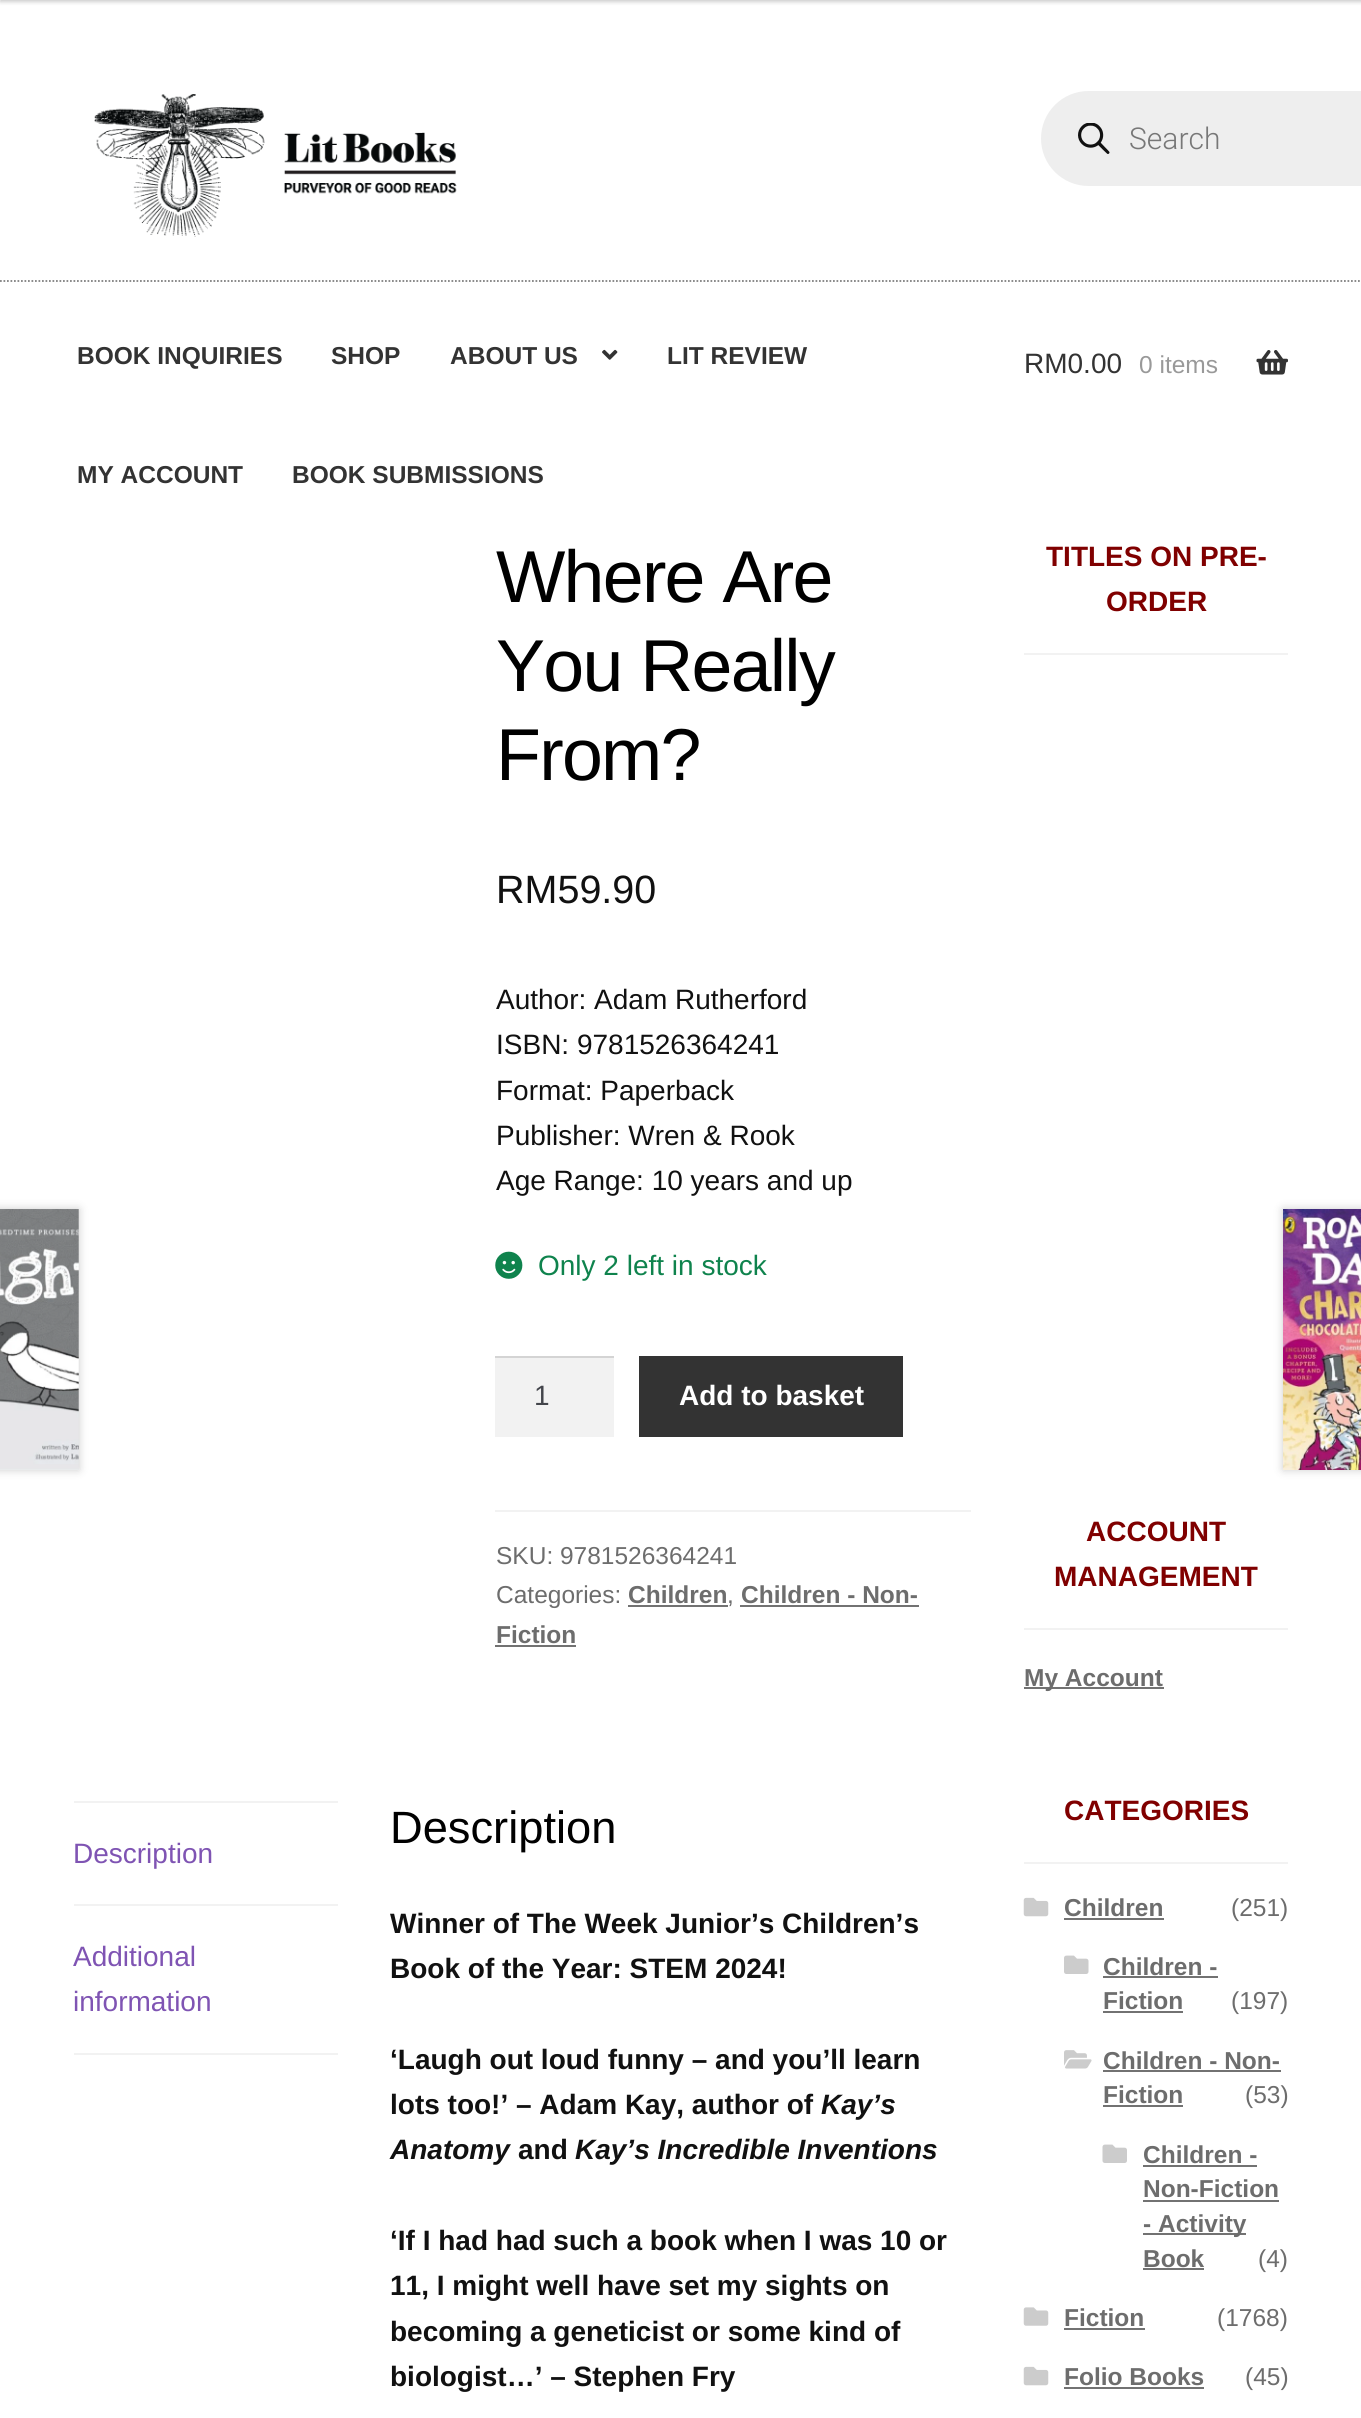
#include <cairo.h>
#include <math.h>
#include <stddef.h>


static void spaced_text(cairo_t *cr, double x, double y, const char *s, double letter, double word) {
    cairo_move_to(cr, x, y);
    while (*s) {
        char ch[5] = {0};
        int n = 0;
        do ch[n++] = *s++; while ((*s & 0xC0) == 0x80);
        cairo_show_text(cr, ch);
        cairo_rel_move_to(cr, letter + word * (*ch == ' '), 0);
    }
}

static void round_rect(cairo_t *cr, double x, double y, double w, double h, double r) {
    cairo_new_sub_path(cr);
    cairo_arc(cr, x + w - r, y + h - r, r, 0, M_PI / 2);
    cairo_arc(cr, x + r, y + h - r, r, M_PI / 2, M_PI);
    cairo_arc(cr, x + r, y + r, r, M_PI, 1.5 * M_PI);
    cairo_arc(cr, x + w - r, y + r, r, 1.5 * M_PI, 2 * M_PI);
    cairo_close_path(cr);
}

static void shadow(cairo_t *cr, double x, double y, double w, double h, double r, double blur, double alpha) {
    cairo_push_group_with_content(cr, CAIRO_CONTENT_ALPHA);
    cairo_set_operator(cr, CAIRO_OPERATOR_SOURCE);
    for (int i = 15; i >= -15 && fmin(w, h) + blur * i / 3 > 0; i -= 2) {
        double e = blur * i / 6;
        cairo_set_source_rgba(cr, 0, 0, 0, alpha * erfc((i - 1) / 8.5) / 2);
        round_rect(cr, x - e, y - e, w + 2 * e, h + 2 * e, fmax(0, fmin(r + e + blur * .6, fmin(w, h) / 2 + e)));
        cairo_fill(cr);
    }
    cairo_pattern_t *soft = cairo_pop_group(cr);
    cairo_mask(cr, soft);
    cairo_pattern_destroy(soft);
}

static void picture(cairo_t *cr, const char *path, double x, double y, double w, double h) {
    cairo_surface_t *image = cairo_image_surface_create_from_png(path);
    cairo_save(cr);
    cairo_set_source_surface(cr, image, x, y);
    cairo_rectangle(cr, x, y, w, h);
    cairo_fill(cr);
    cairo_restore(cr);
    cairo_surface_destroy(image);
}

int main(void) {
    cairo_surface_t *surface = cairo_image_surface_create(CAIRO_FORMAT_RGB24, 1361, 2418);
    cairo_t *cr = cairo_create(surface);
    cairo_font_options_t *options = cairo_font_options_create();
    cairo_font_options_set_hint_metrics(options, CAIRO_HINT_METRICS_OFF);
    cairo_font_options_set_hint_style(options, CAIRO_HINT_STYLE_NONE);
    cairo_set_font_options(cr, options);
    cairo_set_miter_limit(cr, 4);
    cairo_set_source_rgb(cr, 1, 1, 1);
    cairo_paint(cr);
    cairo_set_source_rgb(cr, 0, 0, 0);
    shadow(cr, 0, -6, 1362, 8, 0, 2, 0.2);
    cairo_new_path(cr);
    cairo_move_to(cr, 0, 281);
    cairo_line_to(cr, 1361.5, 281);
    cairo_set_source_rgb(cr, 0.502, 0.502, 0.502);
    cairo_set_line_width(cr, 1.8);
    cairo_set_dash(cr, (double[]){1.75, 1.75}, 2, 0);
    cairo_stroke(cr);
    picture(cr, "img1.png", 94, 94, 363, 143);
    cairo_set_source_rgb(cr, 0.933, 0.933, 0.933);
    round_rect(cr, 1041, 91, 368, 95, 47.5);
    cairo_fill(cr);
    picture(cr, "img2.png", 1078, 123, 32, 31);
    cairo_select_font_face(cr, "Roboto Light", CAIRO_FONT_SLANT_NORMAL, CAIRO_FONT_WEIGHT_NORMAL);
    cairo_set_font_size(cr, 30);
    cairo_set_source_rgb(cr, 0.467, 0.467, 0.467);
    cairo_move_to(cr, 1129, 149);
    cairo_show_text(cr, "Search");
    cairo_select_font_face(cr, "Liberation Sans", CAIRO_FONT_SLANT_NORMAL, CAIRO_FONT_WEIGHT_BOLD);
    cairo_set_font_size(cr, 24.5);
    cairo_set_source_rgb(cr, 0.2, 0.2, 0.2);
    cairo_move_to(cr, 77, 364);
    cairo_show_text(cr, "BOOK INQUIRIES");
    cairo_move_to(cr, 331, 364);
    cairo_show_text(cr, "SHOP");
    cairo_move_to(cr, 450, 364);
    cairo_show_text(cr, "ABOUT US");
    picture(cr, "img3.png", 602, 349, 16, 11);
    cairo_move_to(cr, 667, 364);
    cairo_show_text(cr, "LIT REVIEW");
    cairo_move_to(cr, 77, 483);
    cairo_show_text(cr, "MY ACCOUNT");
    cairo_move_to(cr, 292, 483);
    cairo_show_text(cr, "BOOK SUBMISSIONS");
    cairo_select_font_face(cr, "Liberation Sans", CAIRO_FONT_SLANT_NORMAL, CAIRO_FONT_WEIGHT_NORMAL);
    cairo_set_font_size(cr, 28);
    cairo_move_to(cr, 1024, 373);
    cairo_show_text(cr, "RM0.00");
    cairo_set_font_size(cr, 24.5);
    cairo_set_source_rgb(cr, 0.6, 0.6, 0.6);
    cairo_move_to(cr, 1139, 373);
    cairo_show_text(cr, "0 items");
    picture(cr, "img4.png", 1256, 350, 32, 25);
    cairo_set_font_size(cr, 73.5);
    cairo_set_source_rgb(cr, 0, 0, 0);
    spaced_text(cr, 496, 602, "Where Are", -1.75, 0);
    spaced_text(cr, 496, 691, "You Really", -1.75, 0);
    spaced_text(cr, 496, 780, "From?", -1.75, 0);
    cairo_set_font_size(cr, 39.5);
    cairo_set_source_rgb(cr, 0.067, 0.067, 0.067);
    cairo_move_to(cr, 496, 903);
    cairo_show_text(cr, "RM59.90");
    cairo_set_font_size(cr, 28);
    cairo_move_to(cr, 496, 1009);
    cairo_show_text(cr, "Author: Adam Rutherford");
    cairo_move_to(cr, 496, 1054);
    cairo_show_text(cr, "ISBN: 9781526364241");
    cairo_move_to(cr, 496, 1100);
    cairo_show_text(cr, "Format: Paperback");
    cairo_move_to(cr, 496, 1145);
    cairo_show_text(cr, "Publisher: Wren & Rook");
    cairo_move_to(cr, 496, 1190);
    cairo_show_text(cr, "Age Range: 10 years and up");
    picture(cr, "img5.png", 495, 1251, 28, 28);
    cairo_set_source_rgb(cr, 0.059, 0.514, 0.302);
    cairo_move_to(cr, 538, 1275);
    cairo_show_text(cr, "Only 2 left in stock");
    cairo_set_source_rgb(cr, 0.949, 0.949, 0.949);
    cairo_rectangle(cr, 495, 1358, 119, 79);
    cairo_fill(cr);
    cairo_set_source_rgb(cr, 0.831, 0.831, 0.831);
    cairo_rectangle(cr, 495, 1356, 119, 2);
    cairo_fill(cr);
    cairo_set_source_rgb(cr, 0.263, 0.271, 0.294);
    cairo_move_to(cr, 534, 1405);
    cairo_show_text(cr, "1");
    cairo_set_source_rgb(cr, 0.2, 0.2, 0.2);
    cairo_rectangle(cr, 639, 1356, 264, 81);
    cairo_fill(cr);
    cairo_select_font_face(cr, "Liberation Sans", CAIRO_FONT_SLANT_NORMAL, CAIRO_FONT_WEIGHT_BOLD);
    cairo_set_source_rgb(cr, 1, 1, 1);
    cairo_move_to(cr, 679, 1405);
    cairo_show_text(cr, "Add to basket");
    cairo_set_source_rgb(cr, 0.949, 0.949, 0.949);
    cairo_rectangle(cr, 495, 1510, 476, 2);
    cairo_fill(cr);
    cairo_select_font_face(cr, "Liberation Sans", CAIRO_FONT_SLANT_NORMAL, CAIRO_FONT_WEIGHT_NORMAL);
    cairo_set_font_size(cr, 24.5);
    cairo_set_source_rgb(cr, 0.427, 0.427, 0.427);
    cairo_move_to(cr, 496, 1564);
    cairo_show_text(cr, "SKU: 9781526364241");
    cairo_move_to(cr, 496, 1603);
    cairo_show_text(cr, "Categories:");
    cairo_select_font_face(cr, "Liberation Sans", CAIRO_FONT_SLANT_NORMAL, CAIRO_FONT_WEIGHT_BOLD);
    cairo_move_to(cr, 628, 1603);
    cairo_show_text(cr, "Children");
    cairo_set_source_rgb(cr, 0.447, 0.447, 0.447);
    cairo_rectangle(cr, 628, 1605, 100, 2);
    cairo_fill(cr);
    cairo_select_font_face(cr, "Liberation Sans", CAIRO_FONT_SLANT_NORMAL, CAIRO_FONT_WEIGHT_NORMAL);
    cairo_set_source_rgb(cr, 0.427, 0.427, 0.427);
    cairo_move_to(cr, 727, 1603);
    cairo_show_text(cr, ",");
    cairo_select_font_face(cr, "Liberation Sans", CAIRO_FONT_SLANT_NORMAL, CAIRO_FONT_WEIGHT_BOLD);
    cairo_move_to(cr, 741, 1603);
    cairo_show_text(cr, "Children - Non-");
    cairo_set_source_rgb(cr, 0.447, 0.447, 0.447);
    cairo_rectangle(cr, 740, 1605, 179, 2);
    cairo_fill(cr);
    cairo_set_source_rgb(cr, 0.427, 0.427, 0.427);
    cairo_move_to(cr, 496, 1643);
    cairo_show_text(cr, "Fiction");
    cairo_set_source_rgb(cr, 0.447, 0.447, 0.447);
    cairo_rectangle(cr, 495, 1645, 81, 2);
    cairo_fill(cr);
    cairo_set_source_rgb(cr, 0, 0, 0);
    shadow(cr, -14, 1209, 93, 261, 0, 4.5, 0.2);
    picture(cr, "img6.png", 0, 1209, 79, 261);
    shadow(cr, 1283, 1209, 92, 261, 0, 4.5, 0.2);
    picture(cr, "img7.png", 1283, 1209, 78, 261);
    cairo_set_source_rgb(cr, 0.949, 0.949, 0.949);
    cairo_rectangle(cr, 74, 1801, 264, 2);
    cairo_fill(cr);
    cairo_rectangle(cr, 74, 1904, 264, 2);
    cairo_fill(cr);
    cairo_select_font_face(cr, "Liberation Sans", CAIRO_FONT_SLANT_NORMAL, CAIRO_FONT_WEIGHT_NORMAL);
    cairo_set_font_size(cr, 28);
    cairo_set_source_rgb(cr, 0.498, 0.329, 0.702);
    cairo_move_to(cr, 73, 1863);
    cairo_show_text(cr, "Description");
    cairo_set_source_rgb(cr, 0.949, 0.949, 0.949);
    cairo_rectangle(cr, 74, 2053, 264, 2);
    cairo_fill(cr);
    cairo_set_source_rgb(cr, 0.498, 0.329, 0.702);
    cairo_move_to(cr, 73, 1966);
    cairo_show_text(cr, "Additional");
    cairo_move_to(cr, 73, 2011);
    cairo_show_text(cr, "information");
    cairo_set_font_size(cr, 45.25);
    cairo_set_source_rgb(cr, 0, 0, 0);
    cairo_move_to(cr, 390, 1843);
    cairo_show_text(cr, "Description");
    cairo_select_font_face(cr, "Liberation Sans", CAIRO_FONT_SLANT_NORMAL, CAIRO_FONT_WEIGHT_BOLD);
    cairo_set_font_size(cr, 28);
    cairo_set_source_rgb(cr, 0.067, 0.067, 0.067);
    cairo_move_to(cr, 390, 1933);
    cairo_show_text(cr, "Winner of The Week Junior’s Children’s");
    cairo_move_to(cr, 390, 1978);
    cairo_show_text(cr, "Book of the Year: STEM 2024!");
    cairo_move_to(cr, 390, 2069);
    cairo_show_text(cr, "‘Laugh out loud funny – and you’ll learn");
    cairo_move_to(cr, 390, 2114);
    cairo_show_text(cr, "lots too!’ – Adam Kay, author of");
    cairo_select_font_face(cr, "Liberation Sans", CAIRO_FONT_SLANT_ITALIC, CAIRO_FONT_WEIGHT_BOLD);
    cairo_move_to(cr, 821, 2114);
    cairo_show_text(cr, "Kay’s");
    cairo_move_to(cr, 390, 2159);
    cairo_show_text(cr, "Anatomy");
    cairo_select_font_face(cr, "Liberation Sans", CAIRO_FONT_SLANT_NORMAL, CAIRO_FONT_WEIGHT_BOLD);
    cairo_move_to(cr, 518, 2159);
    cairo_show_text(cr, "and");
    cairo_select_font_face(cr, "Liberation Sans", CAIRO_FONT_SLANT_ITALIC, CAIRO_FONT_WEIGHT_BOLD);
    cairo_move_to(cr, 575, 2159);
    cairo_show_text(cr, "Kay’s Incredible Inventions");
    cairo_select_font_face(cr, "Liberation Sans", CAIRO_FONT_SLANT_NORMAL, CAIRO_FONT_WEIGHT_BOLD);
    cairo_move_to(cr, 390, 2250);
    cairo_show_text(cr, "‘If I had had such a book when I was 10 or");
    cairo_move_to(cr, 390, 2295);
    cairo_show_text(cr, "11, I might well have set my sights on");
    cairo_move_to(cr, 390, 2341);
    cairo_show_text(cr, "becoming a geneticist or some kind of");
    cairo_move_to(cr, 390, 2386);
    cairo_show_text(cr, "biologist…’ – Stephen Fry");
    cairo_set_source_rgb(cr, 0.949, 0.949, 0.949);
    cairo_rectangle(cr, 1024, 653, 264, 2);
    cairo_fill(cr);
    cairo_set_source_rgb(cr, 0.502, 0, 0);
    cairo_move_to(cr, 1046, 566);
    cairo_show_text(cr, "TITLES ON PRE-");
    cairo_move_to(cr, 1106, 611);
    cairo_show_text(cr, "ORDER");
    cairo_set_source_rgb(cr, 0.949, 0.949, 0.949);
    cairo_rectangle(cr, 1024, 1628, 264, 2);
    cairo_fill(cr);
    cairo_set_source_rgb(cr, 0.502, 0, 0);
    cairo_move_to(cr, 1086, 1541);
    cairo_show_text(cr, "ACCOUNT");
    cairo_move_to(cr, 1054, 1586);
    cairo_show_text(cr, "MANAGEMENT");
    cairo_set_source_rgb(cr, 0.447, 0.447, 0.447);
    cairo_rectangle(cr, 1024, 1687, 140, 2);
    cairo_fill(cr);
    cairo_set_font_size(cr, 24.5);
    cairo_set_source_rgb(cr, 0.427, 0.427, 0.427);
    cairo_move_to(cr, 1024, 1686);
    cairo_show_text(cr, "My Account");
    cairo_set_source_rgb(cr, 0.949, 0.949, 0.949);
    cairo_rectangle(cr, 1024, 1862, 264, 2);
    cairo_fill(cr);
    cairo_set_font_size(cr, 28);
    cairo_set_source_rgb(cr, 0.502, 0, 0);
    cairo_move_to(cr, 1064, 1820);
    cairo_show_text(cr, "CATEGORIES");
    picture(cr, "img8.png", 1023, 1897, 26, 20);
    cairo_set_font_size(cr, 24.5);
    cairo_set_source_rgb(cr, 0.427, 0.427, 0.427);
    cairo_move_to(cr, 1064, 1916);
    cairo_show_text(cr, "Children");
    cairo_set_source_rgb(cr, 0.447, 0.447, 0.447);
    cairo_rectangle(cr, 1064, 1918, 100, 2);
    cairo_fill(cr);
    cairo_select_font_face(cr, "Liberation Sans", CAIRO_FONT_SLANT_NORMAL, CAIRO_FONT_WEIGHT_NORMAL);
    cairo_set_source_rgb(cr, 0.427, 0.427, 0.427);
    cairo_move_to(cr, 1231, 1916);
    cairo_show_text(cr, "(251)");
    picture(cr, "img9.png", 1064, 1955, 25, 19);
    cairo_select_font_face(cr, "Liberation Sans", CAIRO_FONT_SLANT_NORMAL, CAIRO_FONT_WEIGHT_BOLD);
    cairo_move_to(cr, 1103, 1975);
    cairo_show_text(cr, "Children -");
    cairo_set_source_rgb(cr, 0.447, 0.447, 0.447);
    cairo_rectangle(cr, 1103, 1976, 115, 2);
    cairo_fill(cr);
    cairo_set_source_rgb(cr, 0.427, 0.427, 0.427);
    cairo_move_to(cr, 1103, 2009);
    cairo_show_text(cr, "Fiction");
    cairo_set_source_rgb(cr, 0.447, 0.447, 0.447);
    cairo_rectangle(cr, 1103, 2011, 80, 2);
    cairo_fill(cr);
    cairo_select_font_face(cr, "Liberation Sans", CAIRO_FONT_SLANT_NORMAL, CAIRO_FONT_WEIGHT_NORMAL);
    cairo_set_source_rgb(cr, 0.427, 0.427, 0.427);
    cairo_move_to(cr, 1231, 2009);
    cairo_show_text(cr, "(197)");
    picture(cr, "img10.png", 1064, 2050, 28, 19);
    cairo_select_font_face(cr, "Liberation Sans", CAIRO_FONT_SLANT_NORMAL, CAIRO_FONT_WEIGHT_BOLD);
    cairo_move_to(cr, 1103, 2069);
    cairo_show_text(cr, "Children - Non-");
    cairo_set_source_rgb(cr, 0.447, 0.447, 0.447);
    cairo_rectangle(cr, 1103, 2070, 178, 2);
    cairo_fill(cr);
    cairo_set_source_rgb(cr, 0.427, 0.427, 0.427);
    cairo_move_to(cr, 1103, 2103);
    cairo_show_text(cr, "Fiction");
    cairo_set_source_rgb(cr, 0.447, 0.447, 0.447);
    cairo_rectangle(cr, 1103, 2105, 80, 2);
    cairo_fill(cr);
    cairo_select_font_face(cr, "Liberation Sans", CAIRO_FONT_SLANT_NORMAL, CAIRO_FONT_WEIGHT_NORMAL);
    cairo_set_source_rgb(cr, 0.427, 0.427, 0.427);
    cairo_move_to(cr, 1245, 2103);
    cairo_show_text(cr, "(53)");
    picture(cr, "img11.png", 1102, 2144, 25, 19);
    cairo_select_font_face(cr, "Liberation Sans", CAIRO_FONT_SLANT_NORMAL, CAIRO_FONT_WEIGHT_BOLD);
    cairo_move_to(cr, 1143, 2163);
    cairo_show_text(cr, "Children -");
    cairo_set_source_rgb(cr, 0.447, 0.447, 0.447);
    cairo_rectangle(cr, 1143, 2165, 114, 2);
    cairo_fill(cr);
    cairo_set_source_rgb(cr, 0.427, 0.427, 0.427);
    cairo_move_to(cr, 1143, 2197);
    cairo_show_text(cr, "Non-Fiction");
    cairo_set_source_rgb(cr, 0.447, 0.447, 0.447);
    cairo_rectangle(cr, 1143, 2200, 136, 2);
    cairo_fill(cr);
    cairo_rectangle(cr, 1143, 2233, 103, 2);
    cairo_fill(cr);
    cairo_set_source_rgb(cr, 0.427, 0.427, 0.427);
    cairo_move_to(cr, 1143, 2232);
    cairo_show_text(cr, "- Activity");
    cairo_move_to(cr, 1143, 2267);
    cairo_show_text(cr, "Book");
    cairo_set_source_rgb(cr, 0.447, 0.447, 0.447);
    cairo_rectangle(cr, 1143, 2268, 61, 2);
    cairo_fill(cr);
    cairo_select_font_face(cr, "Liberation Sans", CAIRO_FONT_SLANT_NORMAL, CAIRO_FONT_WEIGHT_NORMAL);
    cairo_set_source_rgb(cr, 0.427, 0.427, 0.427);
    cairo_move_to(cr, 1258, 2267);
    cairo_show_text(cr, "(4)");
    picture(cr, "img12.png", 1023, 2307, 26, 19);
    cairo_select_font_face(cr, "Liberation Sans", CAIRO_FONT_SLANT_NORMAL, CAIRO_FONT_WEIGHT_BOLD);
    cairo_move_to(cr, 1064, 2326);
    cairo_show_text(cr, "Fiction");
    cairo_set_source_rgb(cr, 0.447, 0.447, 0.447);
    cairo_rectangle(cr, 1064, 2328, 81, 2);
    cairo_fill(cr);
    cairo_select_font_face(cr, "Liberation Sans", CAIRO_FONT_SLANT_NORMAL, CAIRO_FONT_WEIGHT_NORMAL);
    cairo_set_source_rgb(cr, 0.427, 0.427, 0.427);
    cairo_move_to(cr, 1217, 2326);
    cairo_show_text(cr, "(1768)");
    picture(cr, "img8.png", 1023, 2366, 26, 20);
    cairo_select_font_face(cr, "Liberation Sans", CAIRO_FONT_SLANT_NORMAL, CAIRO_FONT_WEIGHT_BOLD);
    cairo_move_to(cr, 1064, 2385);
    cairo_show_text(cr, "Folio Books");
    cairo_set_source_rgb(cr, 0.447, 0.447, 0.447);
    cairo_rectangle(cr, 1064, 2387, 140, 2);
    cairo_fill(cr);
    cairo_select_font_face(cr, "Liberation Sans", CAIRO_FONT_SLANT_NORMAL, CAIRO_FONT_WEIGHT_NORMAL);
    cairo_set_source_rgb(cr, 0.427, 0.427, 0.427);
    cairo_move_to(cr, 1245, 2385);
    cairo_show_text(cr, "(45)");
    cairo_surface_write_to_png(surface, "page.png");
    cairo_font_options_destroy(options);
    cairo_destroy(cr);
    cairo_surface_destroy(surface);
    return 0;
}
